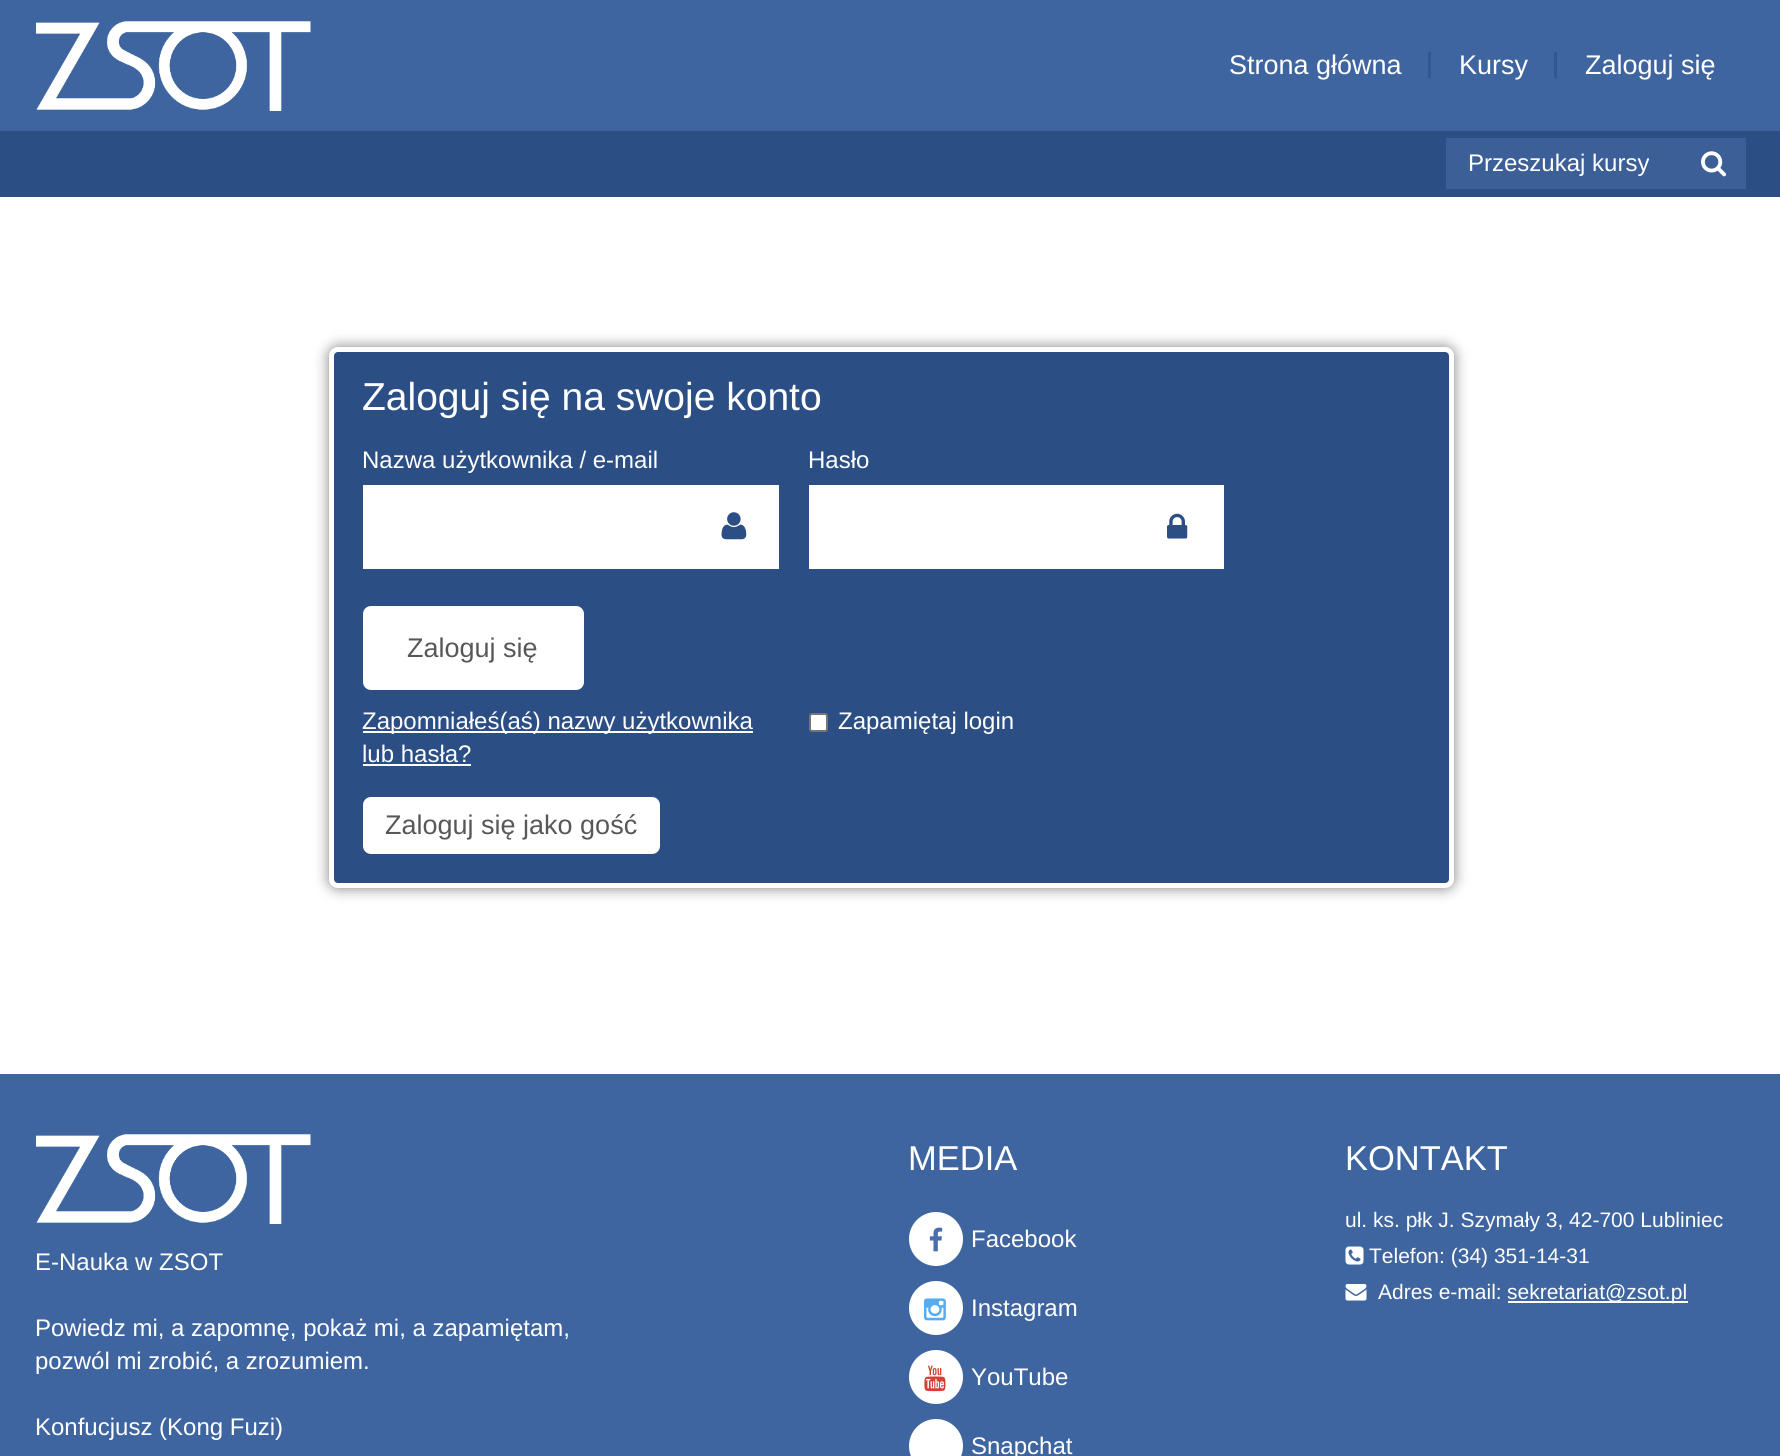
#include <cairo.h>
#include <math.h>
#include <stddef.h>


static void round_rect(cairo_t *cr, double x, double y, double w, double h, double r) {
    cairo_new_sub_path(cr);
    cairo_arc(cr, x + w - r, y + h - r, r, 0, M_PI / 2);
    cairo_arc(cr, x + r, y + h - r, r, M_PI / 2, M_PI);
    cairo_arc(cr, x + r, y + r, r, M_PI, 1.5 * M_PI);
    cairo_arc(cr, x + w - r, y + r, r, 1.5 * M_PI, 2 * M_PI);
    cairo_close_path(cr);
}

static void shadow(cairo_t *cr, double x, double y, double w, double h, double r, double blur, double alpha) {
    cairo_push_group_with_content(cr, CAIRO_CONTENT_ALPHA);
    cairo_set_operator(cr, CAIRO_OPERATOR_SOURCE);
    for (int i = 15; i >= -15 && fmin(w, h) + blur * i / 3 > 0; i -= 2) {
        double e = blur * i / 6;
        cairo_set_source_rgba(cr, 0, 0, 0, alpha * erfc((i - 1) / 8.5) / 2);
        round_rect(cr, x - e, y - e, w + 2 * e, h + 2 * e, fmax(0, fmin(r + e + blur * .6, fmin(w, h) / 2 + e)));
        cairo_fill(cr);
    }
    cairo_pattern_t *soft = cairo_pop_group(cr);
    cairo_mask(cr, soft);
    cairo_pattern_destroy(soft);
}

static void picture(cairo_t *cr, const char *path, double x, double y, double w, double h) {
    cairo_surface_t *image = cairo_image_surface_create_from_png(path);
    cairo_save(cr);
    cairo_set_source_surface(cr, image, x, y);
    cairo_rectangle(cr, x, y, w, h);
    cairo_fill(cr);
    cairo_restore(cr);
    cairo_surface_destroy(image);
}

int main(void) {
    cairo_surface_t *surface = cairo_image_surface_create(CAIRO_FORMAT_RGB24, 1780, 1456);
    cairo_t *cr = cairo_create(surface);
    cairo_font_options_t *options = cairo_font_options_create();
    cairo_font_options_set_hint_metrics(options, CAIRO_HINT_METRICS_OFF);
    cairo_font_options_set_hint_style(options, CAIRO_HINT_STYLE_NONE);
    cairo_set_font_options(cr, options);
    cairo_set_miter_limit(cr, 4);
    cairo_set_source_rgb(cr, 1, 1, 1);
    cairo_paint(cr);
    cairo_set_source_rgb(cr, 0.243, 0.396, 0.627);
    cairo_rectangle(cr, 0, 0, 1780, 131);
    cairo_fill(cr);
    picture(cr, "img1.png", 36, 21, 275, 90);
    cairo_set_source_rgb(cr, 0.196, 0.341, 0.561);
    cairo_rectangle(cr, 1428, 52, 3, 26);
    cairo_fill(cr);
    cairo_select_font_face(cr, "Liberation Sans", CAIRO_FONT_SLANT_NORMAL, CAIRO_FONT_WEIGHT_NORMAL);
    cairo_set_font_size(cr, 27);
    cairo_set_source_rgb(cr, 1, 1, 1);
    cairo_move_to(cr, 1229, 74);
    cairo_show_text(cr, "Strona główna");
    cairo_set_source_rgb(cr, 0.196, 0.341, 0.561);
    cairo_rectangle(cr, 1554, 52, 3, 26);
    cairo_fill(cr);
    cairo_set_source_rgb(cr, 1, 1, 1);
    cairo_move_to(cr, 1459, 74);
    cairo_show_text(cr, "Kursy");
    cairo_move_to(cr, 1585, 74);
    cairo_show_text(cr, "Zaloguj się");
    cairo_set_source_rgb(cr, 0.169, 0.306, 0.518);
    cairo_rectangle(cr, 0, 131, 1780, 66);
    cairo_fill(cr);
    cairo_set_source_rgb(cr, 0.231, 0.373, 0.588);
    cairo_rectangle(cr, 1446, 138, 300, 51);
    cairo_fill(cr);
    cairo_set_font_size(cr, 24);
    cairo_set_source_rgb(cr, 1, 1, 1);
    cairo_move_to(cr, 1468, 171);
    cairo_show_text(cr, "Przeszukaj kursy");
    picture(cr, "img2.png", 1701, 151, 26, 26);
    cairo_set_source_rgb(cr, 0, 0, 0);
    shadow(cr, 329, 347, 1125, 541, 9, 7, 0.5);
    cairo_set_source_rgb(cr, 0.169, 0.306, 0.518);
    round_rect(cr, 331.5, 349.5, 1120, 536, 6.5);
    cairo_fill_preserve(cr);
    cairo_set_source_rgb(cr, 1, 1, 1);
    cairo_set_line_width(cr, 5);
    cairo_stroke(cr);
    cairo_set_font_size(cr, 39);
    cairo_move_to(cr, 362, 410);
    cairo_show_text(cr, "Zaloguj się na swoje konto");
    cairo_set_font_size(cr, 24);
    cairo_move_to(cr, 362, 468);
    cairo_show_text(cr, "Nazwa użytkownika / e-mail");
    cairo_rectangle(cr, 363, 485, 416, 84);
    cairo_fill(cr);
    picture(cr, "img3.png", 721, 512, 26, 28);
    cairo_move_to(cr, 808, 468);
    cairo_show_text(cr, "Hasło");
    cairo_rectangle(cr, 809, 485, 415, 84);
    cairo_fill(cr);
    picture(cr, "img4.png", 1167, 513, 21, 26);
    round_rect(cr, 363, 606, 221, 84, 8);
    cairo_fill(cr);
    cairo_set_font_size(cr, 27);
    cairo_set_source_rgb(cr, 0.345, 0.345, 0.345);
    cairo_move_to(cr, 407, 657);
    cairo_show_text(cr, "Zaloguj się");
    cairo_set_source_rgb(cr, 1, 1, 1);
    cairo_rectangle(cr, 363, 731, 390, 2);
    cairo_fill(cr);
    cairo_set_font_size(cr, 24);
    cairo_move_to(cr, 362, 729);
    cairo_show_text(cr, "Zapomniałeś(aś) nazwy użytkownika");
    cairo_move_to(cr, 362, 762);
    cairo_show_text(cr, "lub hasła?");
    cairo_rectangle(cr, 363, 764, 108, 2);
    cairo_fill(cr);
    round_rect(cr, 810, 714, 17, 17, 2);
    cairo_fill_preserve(cr);
    cairo_set_source_rgb(cr, 0.463, 0.463, 0.463);
    cairo_set_line_width(cr, 2);
    cairo_stroke(cr);
    cairo_set_source_rgb(cr, 1, 1, 1);
    cairo_move_to(cr, 838, 729);
    cairo_show_text(cr, "Zapamiętaj login");
    round_rect(cr, 363, 797, 297, 57, 8);
    cairo_fill(cr);
    cairo_set_font_size(cr, 27);
    cairo_set_source_rgb(cr, 0.345, 0.345, 0.345);
    cairo_move_to(cr, 385, 834);
    cairo_show_text(cr, "Zaloguj się jako gość");
    cairo_set_source_rgb(cr, 0.243, 0.396, 0.627);
    cairo_rectangle(cr, 0, 1074, 1780, 382);
    cairo_fill(cr);
    picture(cr, "img1.png", 36, 1134, 275, 90);
    cairo_set_font_size(cr, 24);
    cairo_set_source_rgb(cr, 1, 1, 1);
    cairo_move_to(cr, 35, 1270);
    cairo_show_text(cr, "E-Nauka w ZSOT");
    cairo_move_to(cr, 35, 1336);
    cairo_show_text(cr, "Powiedz mi, a zapomnę, pokaż mi, a zapamiętam,");
    cairo_move_to(cr, 35, 1369);
    cairo_show_text(cr, "pozwól mi zrobić, a zrozumiem.");
    cairo_move_to(cr, 35, 1435);
    cairo_show_text(cr, "Konfucjusz (Kong Fuzi)");
    cairo_set_font_size(cr, 34.5);
    cairo_move_to(cr, 908, 1170);
    cairo_show_text(cr, "MEDIA");
    cairo_new_path(cr);
    cairo_arc(cr, 936, 1239, 27, 0, 2 * M_PI);
    cairo_fill(cr);
    picture(cr, "img5.png", 929, 1227, 14, 25);
    cairo_set_font_size(cr, 24);
    cairo_move_to(cr, 971, 1247);
    cairo_show_text(cr, "Facebook");
    cairo_new_path(cr);
    cairo_arc(cr, 936, 1308, 27, 0, 2 * M_PI);
    cairo_fill(cr);
    picture(cr, "img6.png", 924, 1298, 22, 23);
    cairo_move_to(cr, 971, 1316);
    cairo_show_text(cr, "Instagram");
    cairo_new_path(cr);
    cairo_arc(cr, 936, 1377, 27, 0, 2 * M_PI);
    cairo_fill(cr);
    picture(cr, "img7.png", 924, 1365, 22, 27);
    cairo_move_to(cr, 971, 1385);
    cairo_show_text(cr, "YouTube");
    cairo_new_path(cr);
    cairo_arc(cr, 936, 1446, 27, 0, 2 * M_PI);
    cairo_fill(cr);
    cairo_move_to(cr, 971, 1454);
    cairo_show_text(cr, "Snapchat");
    cairo_set_font_size(cr, 34.5);
    cairo_move_to(cr, 1345, 1170);
    cairo_show_text(cr, "KONTAKT");
    cairo_set_font_size(cr, 21);
    cairo_move_to(cr, 1345, 1227);
    cairo_show_text(cr, "ul. ks. płk J. Szymały 3, 42-700 Lubliniec");
    picture(cr, "img8.png", 1345, 1246, 19, 19);
    cairo_move_to(cr, 1369, 1263);
    cairo_show_text(cr, "Telefon: (34) 351-14-31");
    picture(cr, "img9.png", 1345, 1284, 22, 17);
    cairo_move_to(cr, 1378, 1299);
    cairo_show_text(cr, "Adres e-mail:");
    cairo_rectangle(cr, 1508, 1301, 180, 2);
    cairo_fill(cr);
    cairo_move_to(cr, 1507, 1299);
    cairo_show_text(cr, "sekretariat@zsot.pl");
    cairo_surface_write_to_png(surface, "page.png");
    cairo_font_options_destroy(options);
    cairo_destroy(cr);
    cairo_surface_destroy(surface);
    return 0;
}
